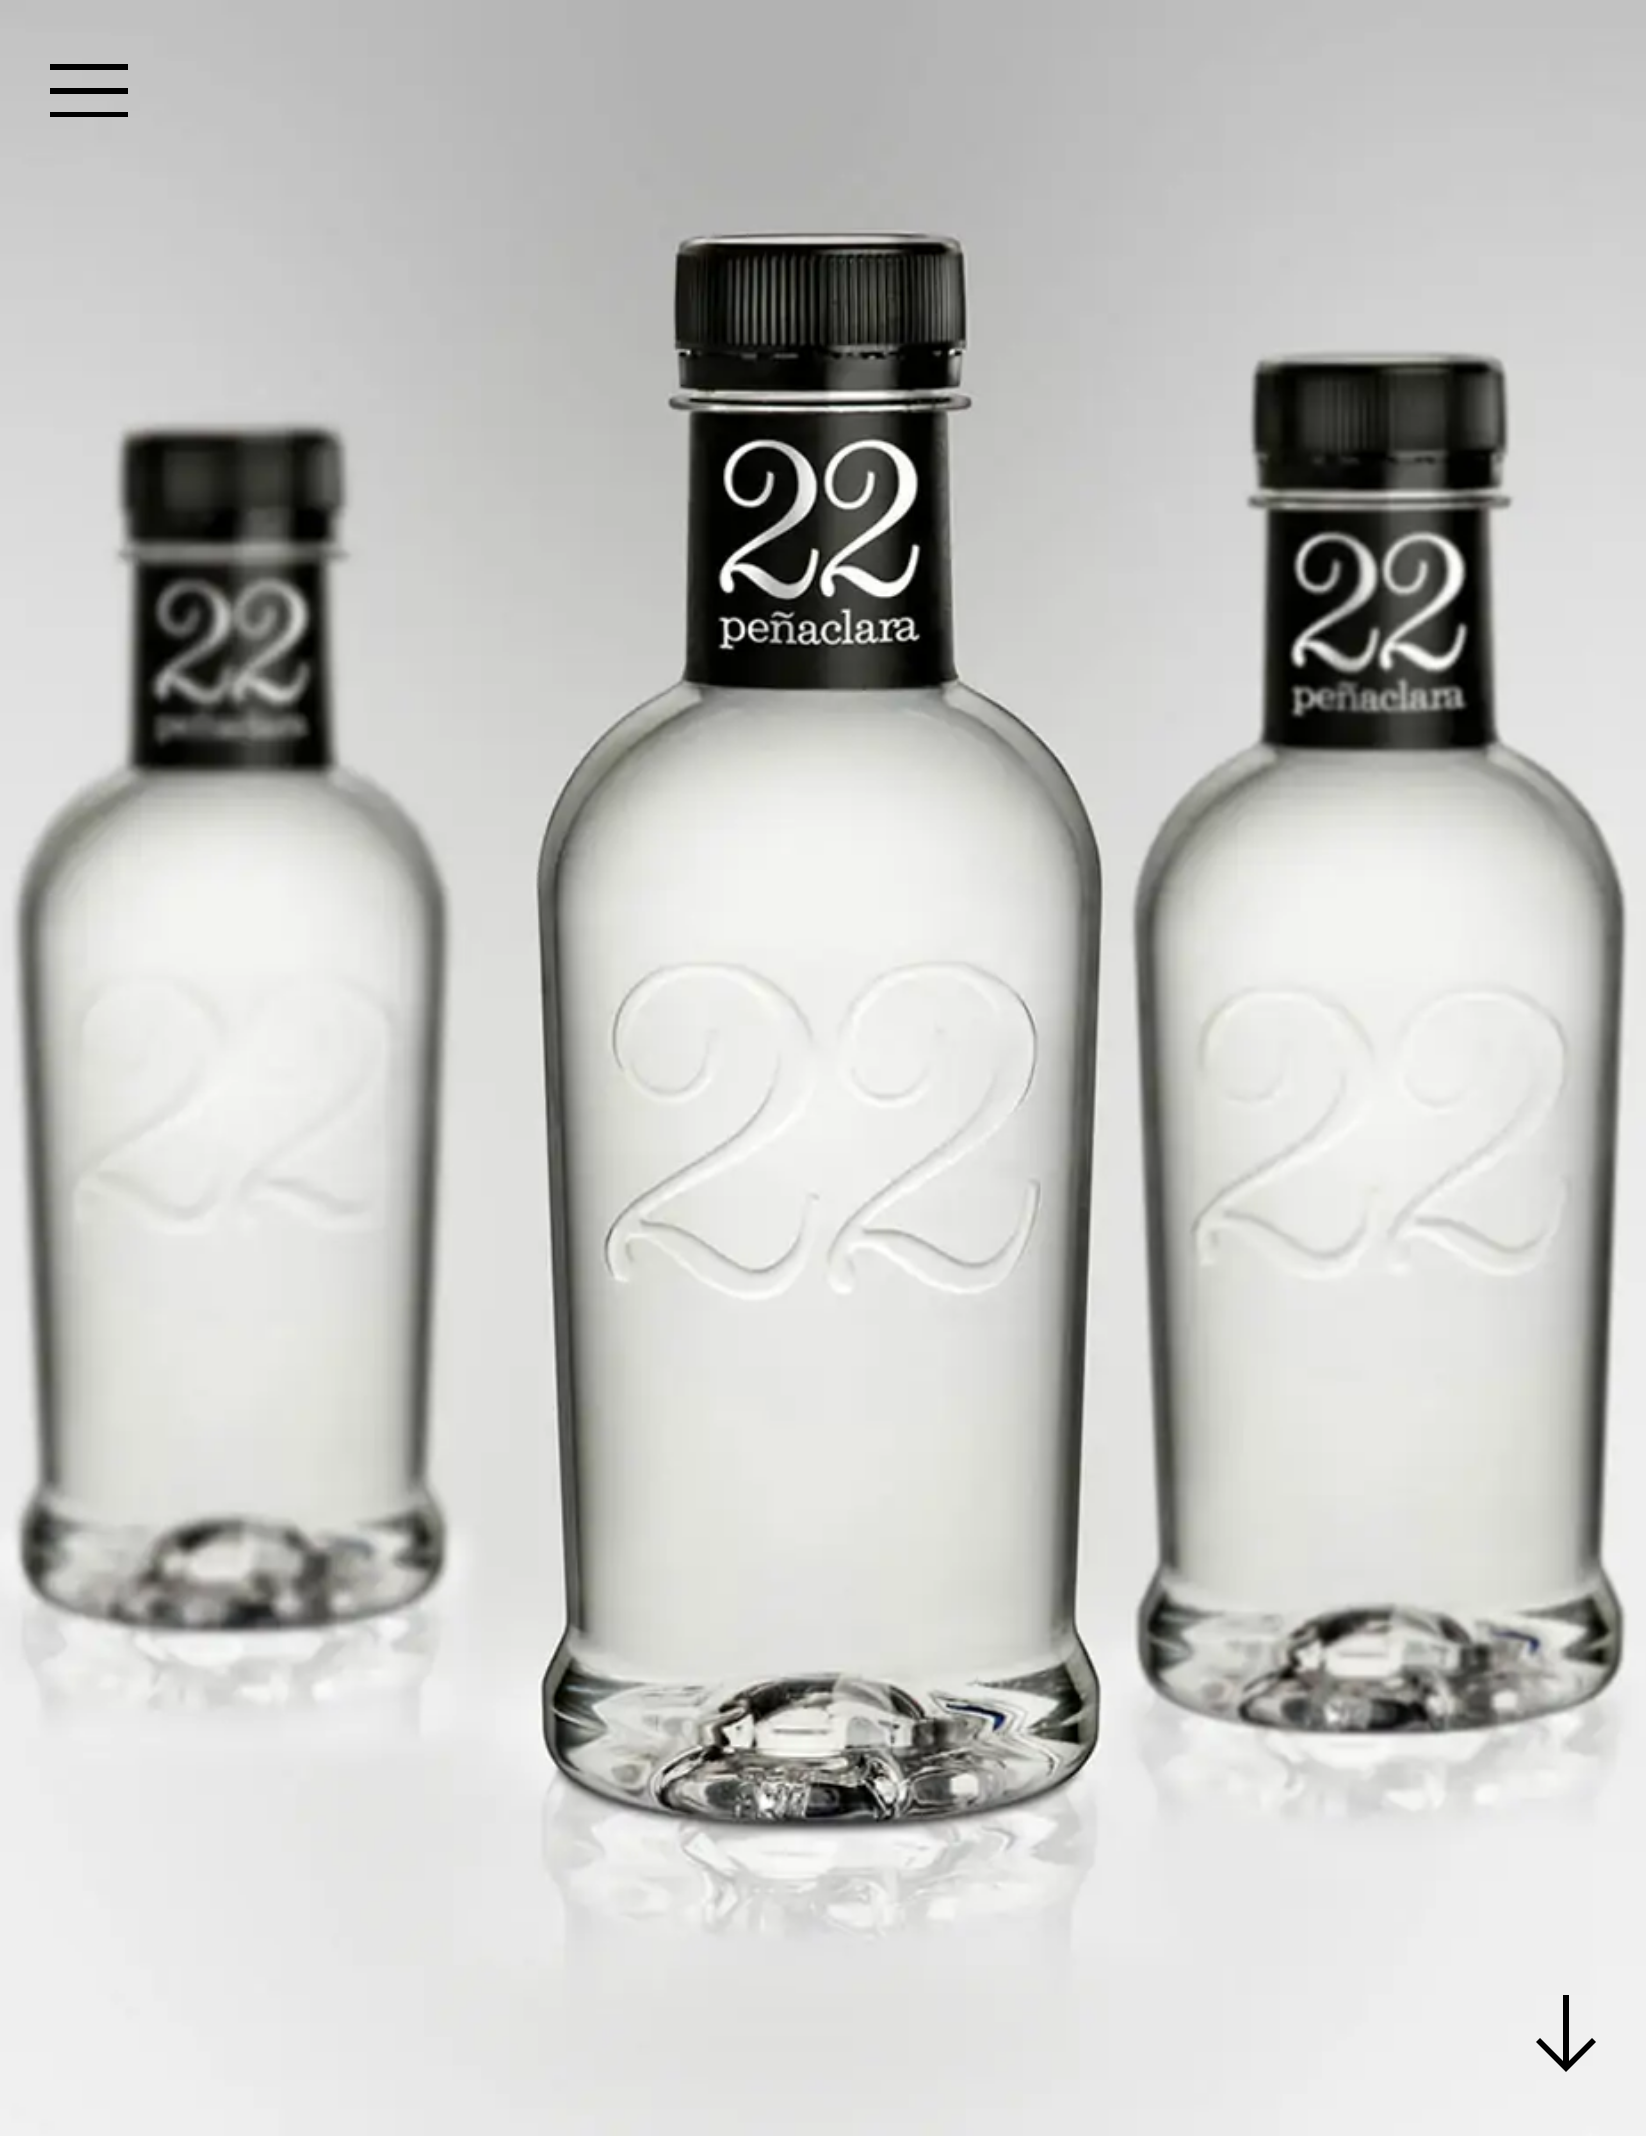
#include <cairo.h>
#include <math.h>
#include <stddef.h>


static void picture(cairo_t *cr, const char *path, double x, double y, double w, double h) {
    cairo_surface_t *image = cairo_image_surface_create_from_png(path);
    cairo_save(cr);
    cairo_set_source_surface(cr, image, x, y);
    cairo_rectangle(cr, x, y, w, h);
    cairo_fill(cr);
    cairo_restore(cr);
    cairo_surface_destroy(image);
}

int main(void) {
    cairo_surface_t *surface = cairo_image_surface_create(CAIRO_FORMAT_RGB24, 1646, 2136);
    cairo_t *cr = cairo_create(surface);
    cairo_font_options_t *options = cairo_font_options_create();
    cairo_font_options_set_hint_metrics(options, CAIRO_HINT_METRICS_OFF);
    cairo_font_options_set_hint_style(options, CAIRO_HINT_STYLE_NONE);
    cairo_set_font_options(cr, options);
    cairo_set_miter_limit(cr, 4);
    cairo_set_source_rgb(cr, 1, 1, 1);
    cairo_paint(cr);
    picture(cr, "img1.png", 0, 0, 1646, 2136);
    cairo_set_source_rgb(cr, 0, 0, 0);
    cairo_new_path(cr);
    cairo_move_to(cr, 1536, 2042);
    cairo_line_to(cr, 1566, 2072);
    cairo_line_to(cr, 1596, 2042);
    cairo_line_to(cr, 1592, 2038);
    cairo_line_to(cr, 1569, 2061);
    cairo_line_to(cr, 1569, 1995);
    cairo_line_to(cr, 1563, 1995);
    cairo_line_to(cr, 1563, 2061);
    cairo_line_to(cr, 1540, 2038);
    cairo_fill(cr);
    cairo_save(cr);
    cairo_rectangle(cr, 50, 64, 78, 54);
    cairo_clip(cr);
    cairo_set_fill_rule(cr, CAIRO_FILL_RULE_EVEN_ODD);
    cairo_new_path(cr);
    cairo_move_to(cr, 50, 64);
    cairo_line_to(cr, 129, 64);
    cairo_line_to(cr, 129, 70);
    cairo_line_to(cr, 50, 70);
    cairo_close_path(cr);
    cairo_move_to(cr, 50, 88);
    cairo_line_to(cr, 129, 88);
    cairo_line_to(cr, 129, 94);
    cairo_line_to(cr, 50, 94);
    cairo_close_path(cr);
    cairo_move_to(cr, 50, 112);
    cairo_line_to(cr, 129, 112);
    cairo_line_to(cr, 129, 117);
    cairo_line_to(cr, 50, 117);
    cairo_close_path(cr);
    cairo_fill(cr);
    cairo_restore(cr);
    cairo_surface_write_to_png(surface, "page.png");
    cairo_font_options_destroy(options);
    cairo_destroy(cr);
    cairo_surface_destroy(surface);
    return 0;
}
